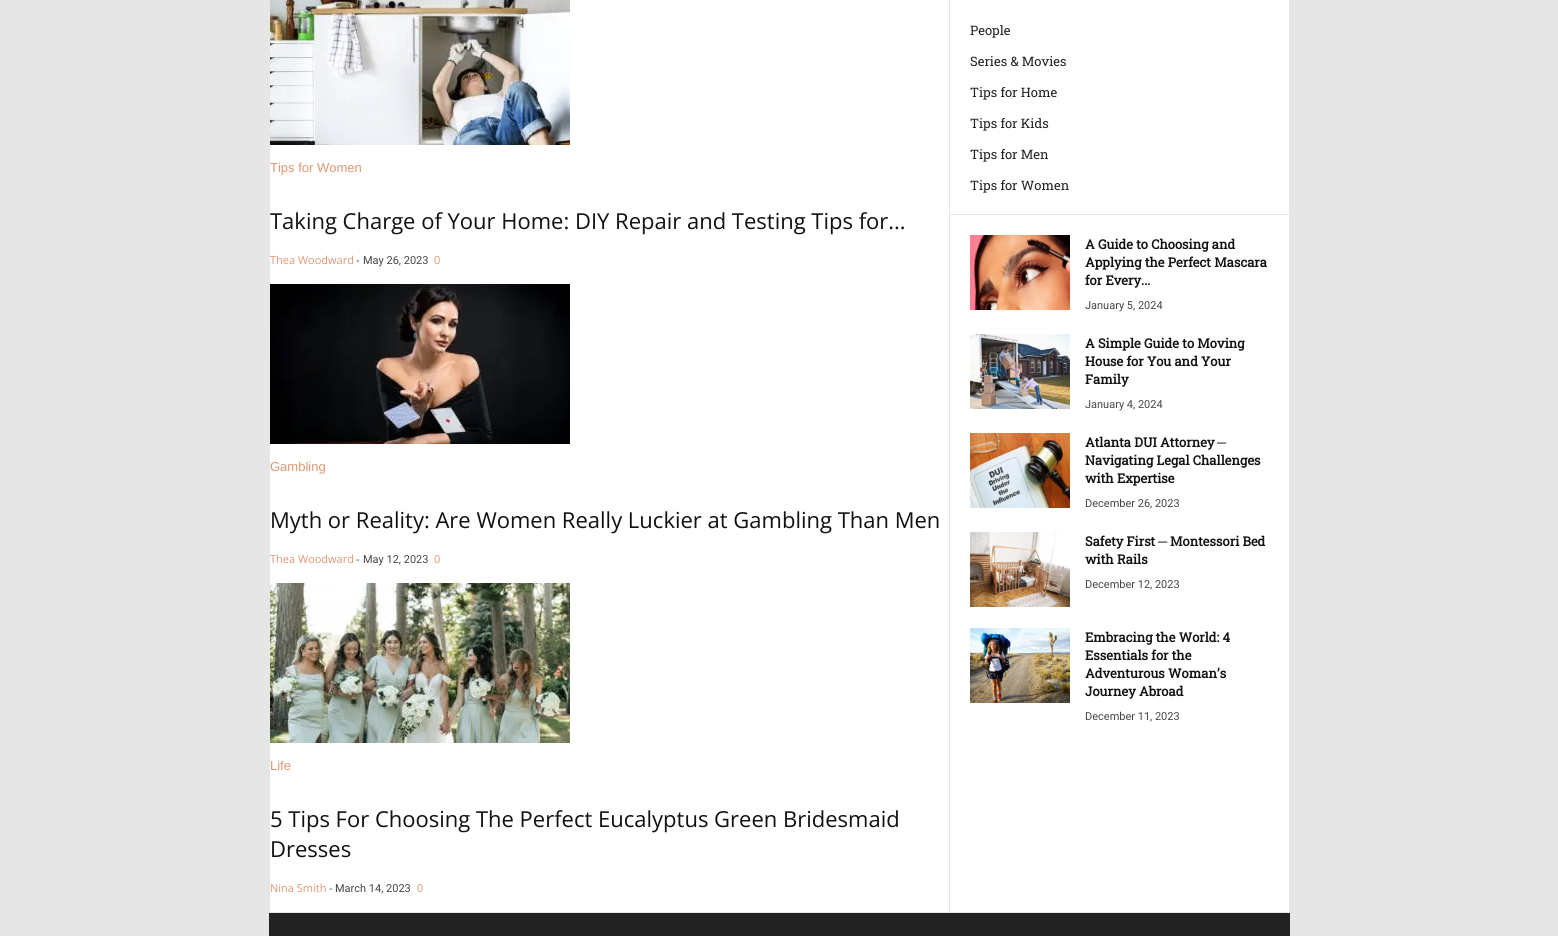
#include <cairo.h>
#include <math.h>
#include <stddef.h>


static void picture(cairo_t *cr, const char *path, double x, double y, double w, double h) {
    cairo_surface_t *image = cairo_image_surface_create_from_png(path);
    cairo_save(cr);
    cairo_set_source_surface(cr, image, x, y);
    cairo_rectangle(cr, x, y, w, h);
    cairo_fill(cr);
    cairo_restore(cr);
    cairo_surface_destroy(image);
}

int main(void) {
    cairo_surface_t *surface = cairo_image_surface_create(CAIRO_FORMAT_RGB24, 1558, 936);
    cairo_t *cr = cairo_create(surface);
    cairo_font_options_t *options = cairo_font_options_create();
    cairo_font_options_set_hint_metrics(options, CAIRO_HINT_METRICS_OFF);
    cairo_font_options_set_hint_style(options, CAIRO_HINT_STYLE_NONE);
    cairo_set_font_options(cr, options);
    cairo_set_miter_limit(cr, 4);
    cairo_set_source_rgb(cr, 0.902, 0.902, 0.902);
    cairo_paint(cr);
    cairo_set_source_rgb(cr, 1, 1, 1);
    cairo_rectangle(cr, 270, 0, 1019, 912);
    cairo_fill(cr);
    picture(cr, "img1.png", 270, 0, 300, 145);
    cairo_select_font_face(cr, "Liberation Sans", CAIRO_FONT_SLANT_NORMAL, CAIRO_FONT_WEIGHT_NORMAL);
    cairo_set_font_size(cr, 13);
    cairo_set_source_rgb(cr, 0.875, 0.592, 0.447);
    cairo_move_to(cr, 270, 172);
    cairo_show_text(cr, "Tips for Women");
    cairo_select_font_face(cr, "Open Sans", CAIRO_FONT_SLANT_NORMAL, CAIRO_FONT_WEIGHT_NORMAL);
    cairo_set_font_size(cr, 22);
    cairo_set_source_rgb(cr, 0.067, 0.067, 0.067);
    cairo_move_to(cr, 270, 229);
    cairo_show_text(cr, "Taking Charge of Your Home: DIY Repair and Testing Tips for...");
    cairo_set_font_size(cr, 11);
    cairo_set_source_rgb(cr, 0.875, 0.592, 0.447);
    cairo_move_to(cr, 270, 264);
    cairo_show_text(cr, "Thea Woodward");
    cairo_set_source_rgb(cr, 0.267, 0.267, 0.267);
    cairo_move_to(cr, 356, 264);
    cairo_show_text(cr, "-");
    cairo_select_font_face(cr, "Roboto", CAIRO_FONT_SLANT_NORMAL, CAIRO_FONT_WEIGHT_NORMAL);
    cairo_move_to(cr, 363, 264);
    cairo_show_text(cr, "May 26, 2023");
    cairo_select_font_face(cr, "Open Sans", CAIRO_FONT_SLANT_NORMAL, CAIRO_FONT_WEIGHT_NORMAL);
    cairo_set_source_rgb(cr, 0.875, 0.592, 0.447);
    cairo_move_to(cr, 434, 264);
    cairo_show_text(cr, "0");
    picture(cr, "img2.png", 270, 284, 300, 160);
    cairo_select_font_face(cr, "Liberation Sans", CAIRO_FONT_SLANT_NORMAL, CAIRO_FONT_WEIGHT_NORMAL);
    cairo_set_font_size(cr, 13);
    cairo_move_to(cr, 270, 471);
    cairo_show_text(cr, "Gambling");
    cairo_select_font_face(cr, "Open Sans", CAIRO_FONT_SLANT_NORMAL, CAIRO_FONT_WEIGHT_NORMAL);
    cairo_set_font_size(cr, 22);
    cairo_set_source_rgb(cr, 0.067, 0.067, 0.067);
    cairo_move_to(cr, 270, 528);
    cairo_show_text(cr, "Myth or Reality: Are Women Really Luckier at Gambling Than Men");
    cairo_set_font_size(cr, 11);
    cairo_set_source_rgb(cr, 0.875, 0.592, 0.447);
    cairo_move_to(cr, 270, 563);
    cairo_show_text(cr, "Thea Woodward");
    cairo_set_source_rgb(cr, 0.267, 0.267, 0.267);
    cairo_move_to(cr, 356, 563);
    cairo_show_text(cr, "-");
    cairo_select_font_face(cr, "Roboto", CAIRO_FONT_SLANT_NORMAL, CAIRO_FONT_WEIGHT_NORMAL);
    cairo_move_to(cr, 363, 563);
    cairo_show_text(cr, "May 12, 2023");
    cairo_select_font_face(cr, "Open Sans", CAIRO_FONT_SLANT_NORMAL, CAIRO_FONT_WEIGHT_NORMAL);
    cairo_set_source_rgb(cr, 0.875, 0.592, 0.447);
    cairo_move_to(cr, 434, 563);
    cairo_show_text(cr, "0");
    picture(cr, "img3.png", 270, 583, 300, 160);
    cairo_select_font_face(cr, "Liberation Sans", CAIRO_FONT_SLANT_NORMAL, CAIRO_FONT_WEIGHT_NORMAL);
    cairo_set_font_size(cr, 13);
    cairo_move_to(cr, 270, 770);
    cairo_show_text(cr, "Life");
    cairo_select_font_face(cr, "Open Sans", CAIRO_FONT_SLANT_NORMAL, CAIRO_FONT_WEIGHT_NORMAL);
    cairo_set_font_size(cr, 22);
    cairo_set_source_rgb(cr, 0.067, 0.067, 0.067);
    cairo_move_to(cr, 270, 827);
    cairo_show_text(cr, "5 Tips For Choosing The Perfect Eucalyptus Green Bridesmaid");
    cairo_move_to(cr, 270, 857);
    cairo_show_text(cr, "Dresses");
    cairo_set_font_size(cr, 11);
    cairo_set_source_rgb(cr, 0.875, 0.592, 0.447);
    cairo_move_to(cr, 270, 892);
    cairo_show_text(cr, "Nina Smith");
    cairo_set_source_rgb(cr, 0.267, 0.267, 0.267);
    cairo_move_to(cr, 329, 892);
    cairo_show_text(cr, "-");
    cairo_select_font_face(cr, "Roboto", CAIRO_FONT_SLANT_NORMAL, CAIRO_FONT_WEIGHT_NORMAL);
    cairo_move_to(cr, 335, 892);
    cairo_show_text(cr, "March 14, 2023");
    cairo_select_font_face(cr, "Open Sans", CAIRO_FONT_SLANT_NORMAL, CAIRO_FONT_WEIGHT_NORMAL);
    cairo_set_source_rgb(cr, 0.875, 0.592, 0.447);
    cairo_move_to(cr, 417, 892);
    cairo_show_text(cr, "0");
    cairo_set_source_rgb(cr, 0.902, 0.902, 0.902);
    cairo_rectangle(cr, 949, 0, 1, 912);
    cairo_fill(cr);
    cairo_select_font_face(cr, "Roboto Slab", CAIRO_FONT_SLANT_NORMAL, CAIRO_FONT_WEIGHT_NORMAL);
    cairo_set_font_size(cr, 13);
    cairo_set_source_rgb(cr, 0.133, 0.133, 0.133);
    cairo_move_to(cr, 970, 35);
    cairo_show_text(cr, "People");
    cairo_move_to(cr, 970, 66);
    cairo_show_text(cr, "Series & Movies");
    cairo_move_to(cr, 970, 97);
    cairo_show_text(cr, "Tips for Home");
    cairo_move_to(cr, 970, 128);
    cairo_show_text(cr, "Tips for Kids");
    cairo_move_to(cr, 970, 159);
    cairo_show_text(cr, "Tips for Men");
    cairo_move_to(cr, 970, 190);
    cairo_show_text(cr, "Tips for Women");
    cairo_set_source_rgb(cr, 0.902, 0.902, 0.902);
    cairo_rectangle(cr, 950, 214, 339, 1);
    cairo_fill(cr);
    picture(cr, "img4.png", 970, 235, 100, 75);
    cairo_select_font_face(cr, "Roboto Slab", CAIRO_FONT_SLANT_NORMAL, CAIRO_FONT_WEIGHT_BOLD);
    cairo_set_source_rgb(cr, 0.067, 0.067, 0.067);
    cairo_move_to(cr, 1085, 249);
    cairo_show_text(cr, "A Guide to Choosing and");
    cairo_move_to(cr, 1085, 267);
    cairo_show_text(cr, "Applying the Perfect Mascara");
    cairo_move_to(cr, 1085, 285);
    cairo_show_text(cr, "for Every...");
    cairo_select_font_face(cr, "Roboto", CAIRO_FONT_SLANT_NORMAL, CAIRO_FONT_WEIGHT_NORMAL);
    cairo_set_font_size(cr, 11);
    cairo_set_source_rgb(cr, 0.267, 0.267, 0.267);
    cairo_move_to(cr, 1085, 309);
    cairo_show_text(cr, "January 5, 2024");
    picture(cr, "img5.png", 970, 334, 100, 75);
    cairo_select_font_face(cr, "Roboto Slab", CAIRO_FONT_SLANT_NORMAL, CAIRO_FONT_WEIGHT_BOLD);
    cairo_set_font_size(cr, 13);
    cairo_set_source_rgb(cr, 0.067, 0.067, 0.067);
    cairo_move_to(cr, 1085, 348);
    cairo_show_text(cr, "A Simple Guide to Moving");
    cairo_move_to(cr, 1085, 366);
    cairo_show_text(cr, "House for You and Your");
    cairo_move_to(cr, 1085, 384);
    cairo_show_text(cr, "Family");
    cairo_select_font_face(cr, "Roboto", CAIRO_FONT_SLANT_NORMAL, CAIRO_FONT_WEIGHT_NORMAL);
    cairo_set_font_size(cr, 11);
    cairo_set_source_rgb(cr, 0.267, 0.267, 0.267);
    cairo_move_to(cr, 1085, 408);
    cairo_show_text(cr, "January 4, 2024");
    picture(cr, "img6.png", 970, 433, 100, 75);
    cairo_select_font_face(cr, "Roboto Slab", CAIRO_FONT_SLANT_NORMAL, CAIRO_FONT_WEIGHT_BOLD);
    cairo_set_font_size(cr, 13);
    cairo_set_source_rgb(cr, 0.067, 0.067, 0.067);
    cairo_move_to(cr, 1085, 447);
    cairo_show_text(cr, "Atlanta DUI Attorney");
    cairo_select_font_face(cr, "Liberation Serif", CAIRO_FONT_SLANT_NORMAL, CAIRO_FONT_WEIGHT_BOLD);
    cairo_move_to(cr, 1217, 447);
    cairo_show_text(cr, "─");
    cairo_select_font_face(cr, "Roboto Slab", CAIRO_FONT_SLANT_NORMAL, CAIRO_FONT_WEIGHT_BOLD);
    cairo_move_to(cr, 1085, 465);
    cairo_show_text(cr, "Navigating Legal Challenges");
    cairo_move_to(cr, 1085, 483);
    cairo_show_text(cr, "with Expertise");
    cairo_select_font_face(cr, "Roboto", CAIRO_FONT_SLANT_NORMAL, CAIRO_FONT_WEIGHT_NORMAL);
    cairo_set_font_size(cr, 11);
    cairo_set_source_rgb(cr, 0.267, 0.267, 0.267);
    cairo_move_to(cr, 1085, 507);
    cairo_show_text(cr, "December 26, 2023");
    picture(cr, "img7.png", 970, 532, 100, 75);
    cairo_select_font_face(cr, "Roboto Slab", CAIRO_FONT_SLANT_NORMAL, CAIRO_FONT_WEIGHT_BOLD);
    cairo_set_font_size(cr, 13);
    cairo_set_source_rgb(cr, 0.067, 0.067, 0.067);
    cairo_move_to(cr, 1085, 546);
    cairo_show_text(cr, "Safety First");
    cairo_select_font_face(cr, "Liberation Serif", CAIRO_FONT_SLANT_NORMAL, CAIRO_FONT_WEIGHT_BOLD);
    cairo_move_to(cr, 1158, 546);
    cairo_show_text(cr, "─");
    cairo_select_font_face(cr, "Roboto Slab", CAIRO_FONT_SLANT_NORMAL, CAIRO_FONT_WEIGHT_BOLD);
    cairo_move_to(cr, 1170, 546);
    cairo_show_text(cr, "Montessori Bed");
    cairo_move_to(cr, 1085, 564);
    cairo_show_text(cr, "with Rails");
    cairo_select_font_face(cr, "Roboto", CAIRO_FONT_SLANT_NORMAL, CAIRO_FONT_WEIGHT_NORMAL);
    cairo_set_font_size(cr, 11);
    cairo_set_source_rgb(cr, 0.267, 0.267, 0.267);
    cairo_move_to(cr, 1085, 588);
    cairo_show_text(cr, "December 12, 2023");
    picture(cr, "img8.png", 970, 628, 100, 75);
    cairo_select_font_face(cr, "Roboto Slab", CAIRO_FONT_SLANT_NORMAL, CAIRO_FONT_WEIGHT_BOLD);
    cairo_set_font_size(cr, 13);
    cairo_set_source_rgb(cr, 0.067, 0.067, 0.067);
    cairo_move_to(cr, 1085, 642);
    cairo_show_text(cr, "Embracing the World: 4");
    cairo_move_to(cr, 1085, 660);
    cairo_show_text(cr, "Essentials for the");
    cairo_move_to(cr, 1085, 678);
    cairo_show_text(cr, "Adventurous Woman’s");
    cairo_move_to(cr, 1085, 696);
    cairo_show_text(cr, "Journey Abroad");
    cairo_select_font_face(cr, "Roboto", CAIRO_FONT_SLANT_NORMAL, CAIRO_FONT_WEIGHT_NORMAL);
    cairo_set_font_size(cr, 11);
    cairo_set_source_rgb(cr, 0.267, 0.267, 0.267);
    cairo_move_to(cr, 1085, 720);
    cairo_show_text(cr, "December 11, 2023");
    cairo_set_source_rgb(cr, 0.133, 0.133, 0.133);
    cairo_rectangle(cr, 269, 913, 1021, 23);
    cairo_fill(cr);
    cairo_surface_write_to_png(surface, "page.png");
    cairo_font_options_destroy(options);
    cairo_destroy(cr);
    cairo_surface_destroy(surface);
    return 0;
}
